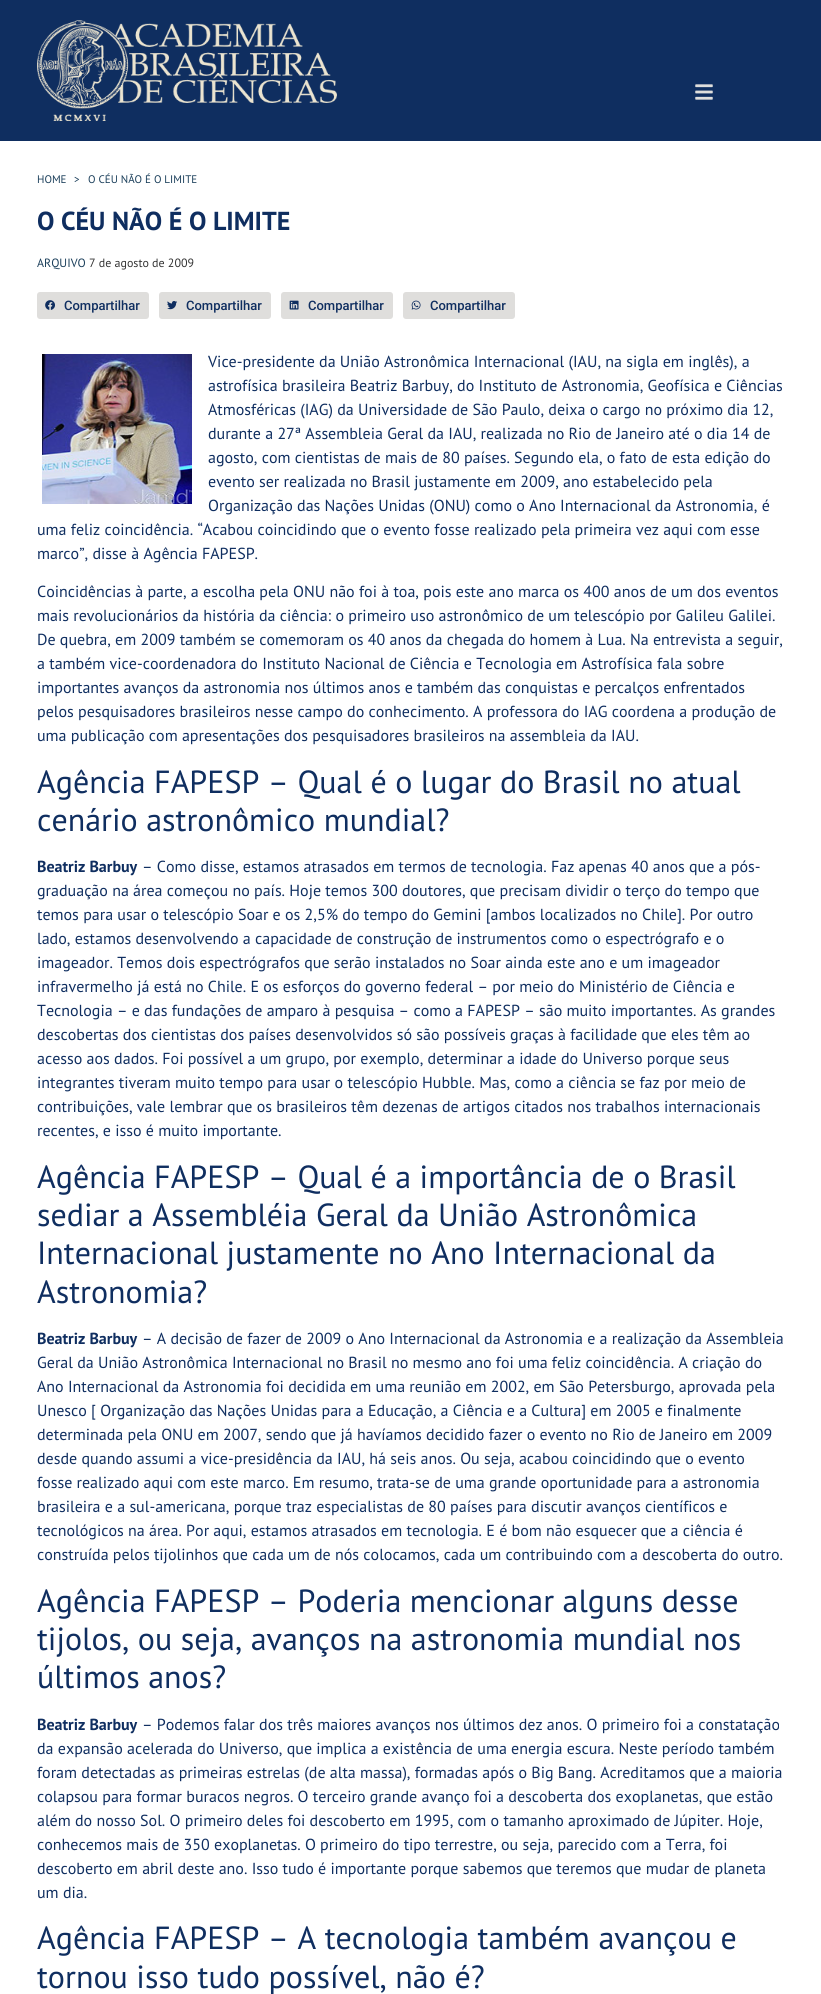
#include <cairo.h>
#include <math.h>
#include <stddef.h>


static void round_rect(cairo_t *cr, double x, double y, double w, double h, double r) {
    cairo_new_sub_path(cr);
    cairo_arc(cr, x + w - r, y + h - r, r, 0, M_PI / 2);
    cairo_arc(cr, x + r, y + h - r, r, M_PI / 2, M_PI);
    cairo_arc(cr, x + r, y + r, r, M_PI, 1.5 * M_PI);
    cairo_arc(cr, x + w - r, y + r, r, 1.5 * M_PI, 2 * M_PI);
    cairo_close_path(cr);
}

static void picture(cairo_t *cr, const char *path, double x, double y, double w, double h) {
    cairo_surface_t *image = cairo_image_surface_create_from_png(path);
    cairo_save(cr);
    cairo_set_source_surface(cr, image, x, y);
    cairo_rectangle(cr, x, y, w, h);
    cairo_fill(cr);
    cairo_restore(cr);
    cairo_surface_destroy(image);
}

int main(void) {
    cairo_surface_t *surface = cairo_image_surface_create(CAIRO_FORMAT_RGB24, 821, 1994);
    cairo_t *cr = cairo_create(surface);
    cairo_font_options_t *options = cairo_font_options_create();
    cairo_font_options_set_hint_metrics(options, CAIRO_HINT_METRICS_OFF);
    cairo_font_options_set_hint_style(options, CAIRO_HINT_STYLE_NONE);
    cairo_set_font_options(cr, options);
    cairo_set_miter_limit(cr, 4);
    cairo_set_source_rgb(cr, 1, 1, 1);
    cairo_paint(cr);
    cairo_set_source_rgb(cr, 0.059, 0.18, 0.376);
    cairo_rectangle(cr, 0, 0, 821, 141);
    cairo_fill(cr);
    picture(cr, "img1.png", 37, 20, 300, 101);
    picture(cr, "img2.png", 695, 84, 18, 16);
    cairo_select_font_face(cr, "PT Sans", CAIRO_FONT_SLANT_NORMAL, CAIRO_FONT_WEIGHT_NORMAL);
    cairo_set_font_size(cr, 11);
    cairo_set_source_rgb(cr, 0.102, 0.243, 0.353);
    cairo_move_to(cr, 37, 183);
    cairo_show_text(cr, "HOME");
    cairo_move_to(cr, 74, 183);
    cairo_show_text(cr, ">");
    cairo_move_to(cr, 88, 183);
    cairo_show_text(cr, "O CÉU NÃO É O LIMITE");
    cairo_select_font_face(cr, "PT Sans", CAIRO_FONT_SLANT_NORMAL, CAIRO_FONT_WEIGHT_BOLD);
    cairo_set_font_size(cr, 26);
    cairo_set_source_rgb(cr, 0.059, 0.18, 0.376);
    cairo_move_to(cr, 37, 230);
    cairo_show_text(cr, "O CÉU NÃO É O LIMITE");
    cairo_select_font_face(cr, "PT Sans", CAIRO_FONT_SLANT_NORMAL, CAIRO_FONT_WEIGHT_NORMAL);
    cairo_set_font_size(cr, 12);
    cairo_set_source_rgb(cr, 0.102, 0.243, 0.353);
    cairo_move_to(cr, 37, 267);
    cairo_show_text(cr, "ARQUIVO");
    cairo_set_source_rgb(cr, 0.2, 0.2, 0.2);
    cairo_move_to(cr, 89, 267);
    cairo_show_text(cr, "7 de agosto de 2009");
    cairo_set_source_rgb(cr, 0.875, 0.871, 0.863);
    round_rect(cr, 37, 292, 112, 27, 3);
    cairo_fill(cr);
    picture(cr, "img3.png", 45, 300, 10, 10);
    cairo_select_font_face(cr, "Roboto Medium", CAIRO_FONT_SLANT_NORMAL, CAIRO_FONT_WEIGHT_NORMAL);
    cairo_set_font_size(cr, 13);
    cairo_set_source_rgb(cr, 0.059, 0.18, 0.376);
    cairo_move_to(cr, 64, 310);
    cairo_show_text(cr, "Compartilhar");
    cairo_set_source_rgb(cr, 0.875, 0.871, 0.863);
    round_rect(cr, 159, 292, 112, 27, 3);
    cairo_fill(cr);
    picture(cr, "img4.png", 167, 301, 10, 9);
    cairo_set_source_rgb(cr, 0.059, 0.18, 0.376);
    cairo_move_to(cr, 186, 310);
    cairo_show_text(cr, "Compartilhar");
    cairo_set_source_rgb(cr, 0.875, 0.871, 0.863);
    round_rect(cr, 281, 292, 112, 27, 3);
    cairo_fill(cr);
    picture(cr, "img5.png", 289, 300, 10, 10);
    cairo_set_source_rgb(cr, 0.059, 0.18, 0.376);
    cairo_move_to(cr, 308, 310);
    cairo_show_text(cr, "Compartilhar");
    cairo_set_source_rgb(cr, 0.875, 0.871, 0.863);
    round_rect(cr, 403, 292, 112, 27, 3);
    cairo_fill(cr);
    picture(cr, "img6.png", 411, 300, 10, 10);
    cairo_set_source_rgb(cr, 0.059, 0.18, 0.376);
    cairo_move_to(cr, 430, 310);
    cairo_show_text(cr, "Compartilhar");
    picture(cr, "img7.png", 42, 354, 150, 150);
    cairo_select_font_face(cr, "PT Sans", CAIRO_FONT_SLANT_NORMAL, CAIRO_FONT_WEIGHT_NORMAL);
    cairo_set_font_size(cr, 16);
    cairo_move_to(cr, 208, 367);
    cairo_show_text(cr, "Vice-presidente da União Astronômica Internacional (IAU, na sigla em inglês), a");
    cairo_move_to(cr, 208, 391);
    cairo_show_text(cr, "astrofísica brasileira Beatriz Barbuy, do Instituto de Astronomia, Geofísica e Ciências");
    cairo_move_to(cr, 208, 415);
    cairo_show_text(cr, "Atmosféricas (IAG) da Universidade de São Paulo, deixa o cargo no próximo dia 12,");
    cairo_move_to(cr, 208, 439);
    cairo_show_text(cr, "durante a 27ª Assembleia Geral da IAU, realizada no Rio de Janeiro até o dia 14 de");
    cairo_move_to(cr, 208, 463);
    cairo_show_text(cr, "agosto, com cientistas de mais de 80 países. Segundo ela, o fato de esta edição do");
    cairo_move_to(cr, 208, 487);
    cairo_show_text(cr, "evento ser realizada no Brasil justamente em 2009, ano estabelecido pela");
    cairo_move_to(cr, 208, 511);
    cairo_show_text(cr, "Organização das Nações Unidas (ONU) como o Ano Internacional da Astronomia, é");
    cairo_move_to(cr, 37, 535);
    cairo_show_text(cr, "uma feliz coincidência. “Acabou coincidindo que o evento fosse realizado pela primeira vez aqui com esse");
    cairo_move_to(cr, 37, 559);
    cairo_show_text(cr, "marco”, disse à Agência FAPESP.");
    cairo_move_to(cr, 37, 597);
    cairo_show_text(cr, "Coincidências à parte, a escolha pela ONU não foi à toa, pois este ano marca os 400 anos de um dos eventos");
    cairo_move_to(cr, 37, 621);
    cairo_show_text(cr, "mais revolucionários da história da ciência: o primeiro uso astronômico de um telescópio por Galileu Galilei.");
    cairo_move_to(cr, 37, 645);
    cairo_show_text(cr, "De quebra, em 2009 também se comemoram os 40 anos da chegada do homem à Lua. Na entrevista a seguir,");
    cairo_move_to(cr, 37, 669);
    cairo_show_text(cr, "a também vice-coordenadora do Instituto Nacional de Ciência e Tecnologia em Astrofísica fala sobre");
    cairo_move_to(cr, 37, 693);
    cairo_show_text(cr, "importantes avanços da astronomia nos últimos anos e também das conquistas e percalços enfrentados");
    cairo_move_to(cr, 37, 717);
    cairo_show_text(cr, "pelos pesquisadores brasileiros nesse campo do conhecimento. A professora do IAG coordena a produção de");
    cairo_move_to(cr, 37, 741);
    cairo_show_text(cr, "uma publicação com apresentações dos pesquisadores brasileiros na assembleia da IAU.");
    cairo_set_font_size(cr, 32);
    cairo_move_to(cr, 37, 793);
    cairo_show_text(cr, "Agência FAPESP – Qual é o lugar do Brasil no atual");
    cairo_move_to(cr, 37, 831);
    cairo_show_text(cr, "cenário astronômico mundial?");
    cairo_select_font_face(cr, "PT Sans", CAIRO_FONT_SLANT_NORMAL, CAIRO_FONT_WEIGHT_BOLD);
    cairo_set_font_size(cr, 16);
    cairo_move_to(cr, 37, 872);
    cairo_show_text(cr, "Beatriz Barbuy");
    cairo_select_font_face(cr, "PT Sans", CAIRO_FONT_SLANT_NORMAL, CAIRO_FONT_WEIGHT_NORMAL);
    cairo_move_to(cr, 142, 872);
    cairo_show_text(cr, "– Como disse, estamos atrasados em termos de tecnologia. Faz apenas 40 anos que a pós-");
    cairo_move_to(cr, 37, 896);
    cairo_show_text(cr, "graduação na área começou no país. Hoje temos 300 doutores, que precisam dividir o terço do tempo que");
    cairo_move_to(cr, 37, 920);
    cairo_show_text(cr, "temos para usar o telescópio Soar e os 2,5% do tempo do Gemini [ambos localizados no Chile]. Por outro");
    cairo_move_to(cr, 37, 944);
    cairo_show_text(cr, "lado, estamos desenvolvendo a capacidade de construção de instrumentos como o espectrógrafo e o");
    cairo_move_to(cr, 37, 968);
    cairo_show_text(cr, "imageador. Temos dois espectrógrafos que serão instalados no Soar ainda este ano e um imageador");
    cairo_move_to(cr, 37, 992);
    cairo_show_text(cr, "infravermelho já está no Chile. E os esforços do governo federal – por meio do Ministério de Ciência e");
    cairo_move_to(cr, 37, 1016);
    cairo_show_text(cr, "Tecnologia – e das fundações de amparo à pesquisa – como a FAPESP – são muito importantes. As grandes");
    cairo_move_to(cr, 37, 1040);
    cairo_show_text(cr, "descobertas dos cientistas dos países desenvolvidos só são possíveis graças à facilidade que eles têm ao");
    cairo_move_to(cr, 37, 1064);
    cairo_show_text(cr, "acesso aos dados. Foi possível a um grupo, por exemplo, determinar a idade do Universo porque seus");
    cairo_move_to(cr, 37, 1088);
    cairo_show_text(cr, "integrantes tiveram muito tempo para usar o telescópio Hubble. Mas, como a ciência se faz por meio de");
    cairo_move_to(cr, 37, 1112);
    cairo_show_text(cr, "contribuições, vale lembrar que os brasileiros têm dezenas de artigos citados nos trabalhos internacionais");
    cairo_move_to(cr, 37, 1136);
    cairo_show_text(cr, "recentes, e isso é muito importante.");
    cairo_set_font_size(cr, 32);
    cairo_move_to(cr, 37, 1188);
    cairo_show_text(cr, "Agência FAPESP – Qual é a importância de o Brasil");
    cairo_move_to(cr, 37, 1226);
    cairo_show_text(cr, "sediar a Assembléia Geral da União Astronômica");
    cairo_move_to(cr, 37, 1264);
    cairo_show_text(cr, "Internacional justamente no Ano Internacional da");
    cairo_move_to(cr, 37, 1303);
    cairo_show_text(cr, "Astronomia?");
    cairo_select_font_face(cr, "PT Sans", CAIRO_FONT_SLANT_NORMAL, CAIRO_FONT_WEIGHT_BOLD);
    cairo_set_font_size(cr, 16);
    cairo_move_to(cr, 37, 1344);
    cairo_show_text(cr, "Beatriz Barbuy");
    cairo_select_font_face(cr, "PT Sans", CAIRO_FONT_SLANT_NORMAL, CAIRO_FONT_WEIGHT_NORMAL);
    cairo_move_to(cr, 142, 1344);
    cairo_show_text(cr, "– A decisão de fazer de 2009 o Ano Internacional da Astronomia e a realização da Assembleia");
    cairo_move_to(cr, 37, 1368);
    cairo_show_text(cr, "Geral da União Astronômica Internacional no Brasil no mesmo ano foi uma feliz coincidência. A criação do");
    cairo_move_to(cr, 37, 1392);
    cairo_show_text(cr, "Ano Internacional da Astronomia foi decidida em uma reunião em 2002, em São Petersburgo, aprovada pela");
    cairo_move_to(cr, 37, 1416);
    cairo_show_text(cr, "Unesco [ Organização das Nações Unidas para a Educação, a Ciência e a Cultura] em 2005 e finalmente");
    cairo_move_to(cr, 37, 1440);
    cairo_show_text(cr, "determinada pela ONU em 2007, sendo que já havíamos decidido fazer o evento no Rio de Janeiro em 2009");
    cairo_move_to(cr, 37, 1464);
    cairo_show_text(cr, "desde quando assumi a vice-presidência da IAU, há seis anos. Ou seja, acabou coincidindo que o evento");
    cairo_move_to(cr, 37, 1488);
    cairo_show_text(cr, "fosse realizado aqui com este marco. Em resumo, trata-se de uma grande oportunidade para a astronomia");
    cairo_move_to(cr, 37, 1512);
    cairo_show_text(cr, "brasileira e a sul-americana, porque traz especialistas de 80 países para discutir avanços científicos e");
    cairo_move_to(cr, 37, 1536);
    cairo_show_text(cr, "tecnológicos na área. Por aqui, estamos atrasados em tecnologia. E é bom não esquecer que a ciência é");
    cairo_move_to(cr, 37, 1560);
    cairo_show_text(cr, "construída pelos tijolinhos que cada um de nós colocamos, cada um contribuindo com a descoberta do outro.");
    cairo_set_font_size(cr, 32);
    cairo_move_to(cr, 37, 1612);
    cairo_show_text(cr, "Agência FAPESP – Poderia mencionar alguns desse");
    cairo_move_to(cr, 37, 1650);
    cairo_show_text(cr, "tijolos, ou seja, avanços na astronomia mundial nos");
    cairo_move_to(cr, 37, 1688);
    cairo_show_text(cr, "últimos anos?");
    cairo_select_font_face(cr, "PT Sans", CAIRO_FONT_SLANT_NORMAL, CAIRO_FONT_WEIGHT_BOLD);
    cairo_set_font_size(cr, 16);
    cairo_move_to(cr, 37, 1730);
    cairo_show_text(cr, "Beatriz Barbuy");
    cairo_select_font_face(cr, "PT Sans", CAIRO_FONT_SLANT_NORMAL, CAIRO_FONT_WEIGHT_NORMAL);
    cairo_move_to(cr, 142, 1730);
    cairo_show_text(cr, "– Podemos falar dos três maiores avanços nos últimos dez anos. O primeiro foi a constatação");
    cairo_move_to(cr, 37, 1754);
    cairo_show_text(cr, "da expansão acelerada do Universo, que implica a existência de uma energia escura. Neste período também");
    cairo_move_to(cr, 37, 1778);
    cairo_show_text(cr, "foram detectadas as primeiras estrelas (de alta massa), formadas após o Big Bang. Acreditamos que a maioria");
    cairo_move_to(cr, 37, 1802);
    cairo_show_text(cr, "colapsou para formar buracos negros. O terceiro grande avanço foi a descoberta dos exoplanetas, que estão");
    cairo_move_to(cr, 37, 1826);
    cairo_show_text(cr, "além do nosso Sol. O primeiro deles foi descoberto em 1995, com o tamanho aproximado de Júpiter. Hoje,");
    cairo_move_to(cr, 37, 1850);
    cairo_show_text(cr, "conhecemos mais de 350 exoplanetas. O primeiro do tipo terrestre, ou seja, parecido com a Terra, foi");
    cairo_move_to(cr, 37, 1874);
    cairo_show_text(cr, "descoberto em abril deste ano. Isso tudo é importante porque sabemos que teremos que mudar de planeta");
    cairo_move_to(cr, 37, 1898);
    cairo_show_text(cr, "um dia.");
    cairo_set_font_size(cr, 32);
    cairo_move_to(cr, 37, 1949);
    cairo_show_text(cr, "Agência FAPESP – A tecnologia também avançou e");
    cairo_move_to(cr, 37, 1988);
    cairo_show_text(cr, "tornou isso tudo possível, não é?");
    cairo_surface_write_to_png(surface, "page.png");
    cairo_font_options_destroy(options);
    cairo_destroy(cr);
    cairo_surface_destroy(surface);
    return 0;
}
